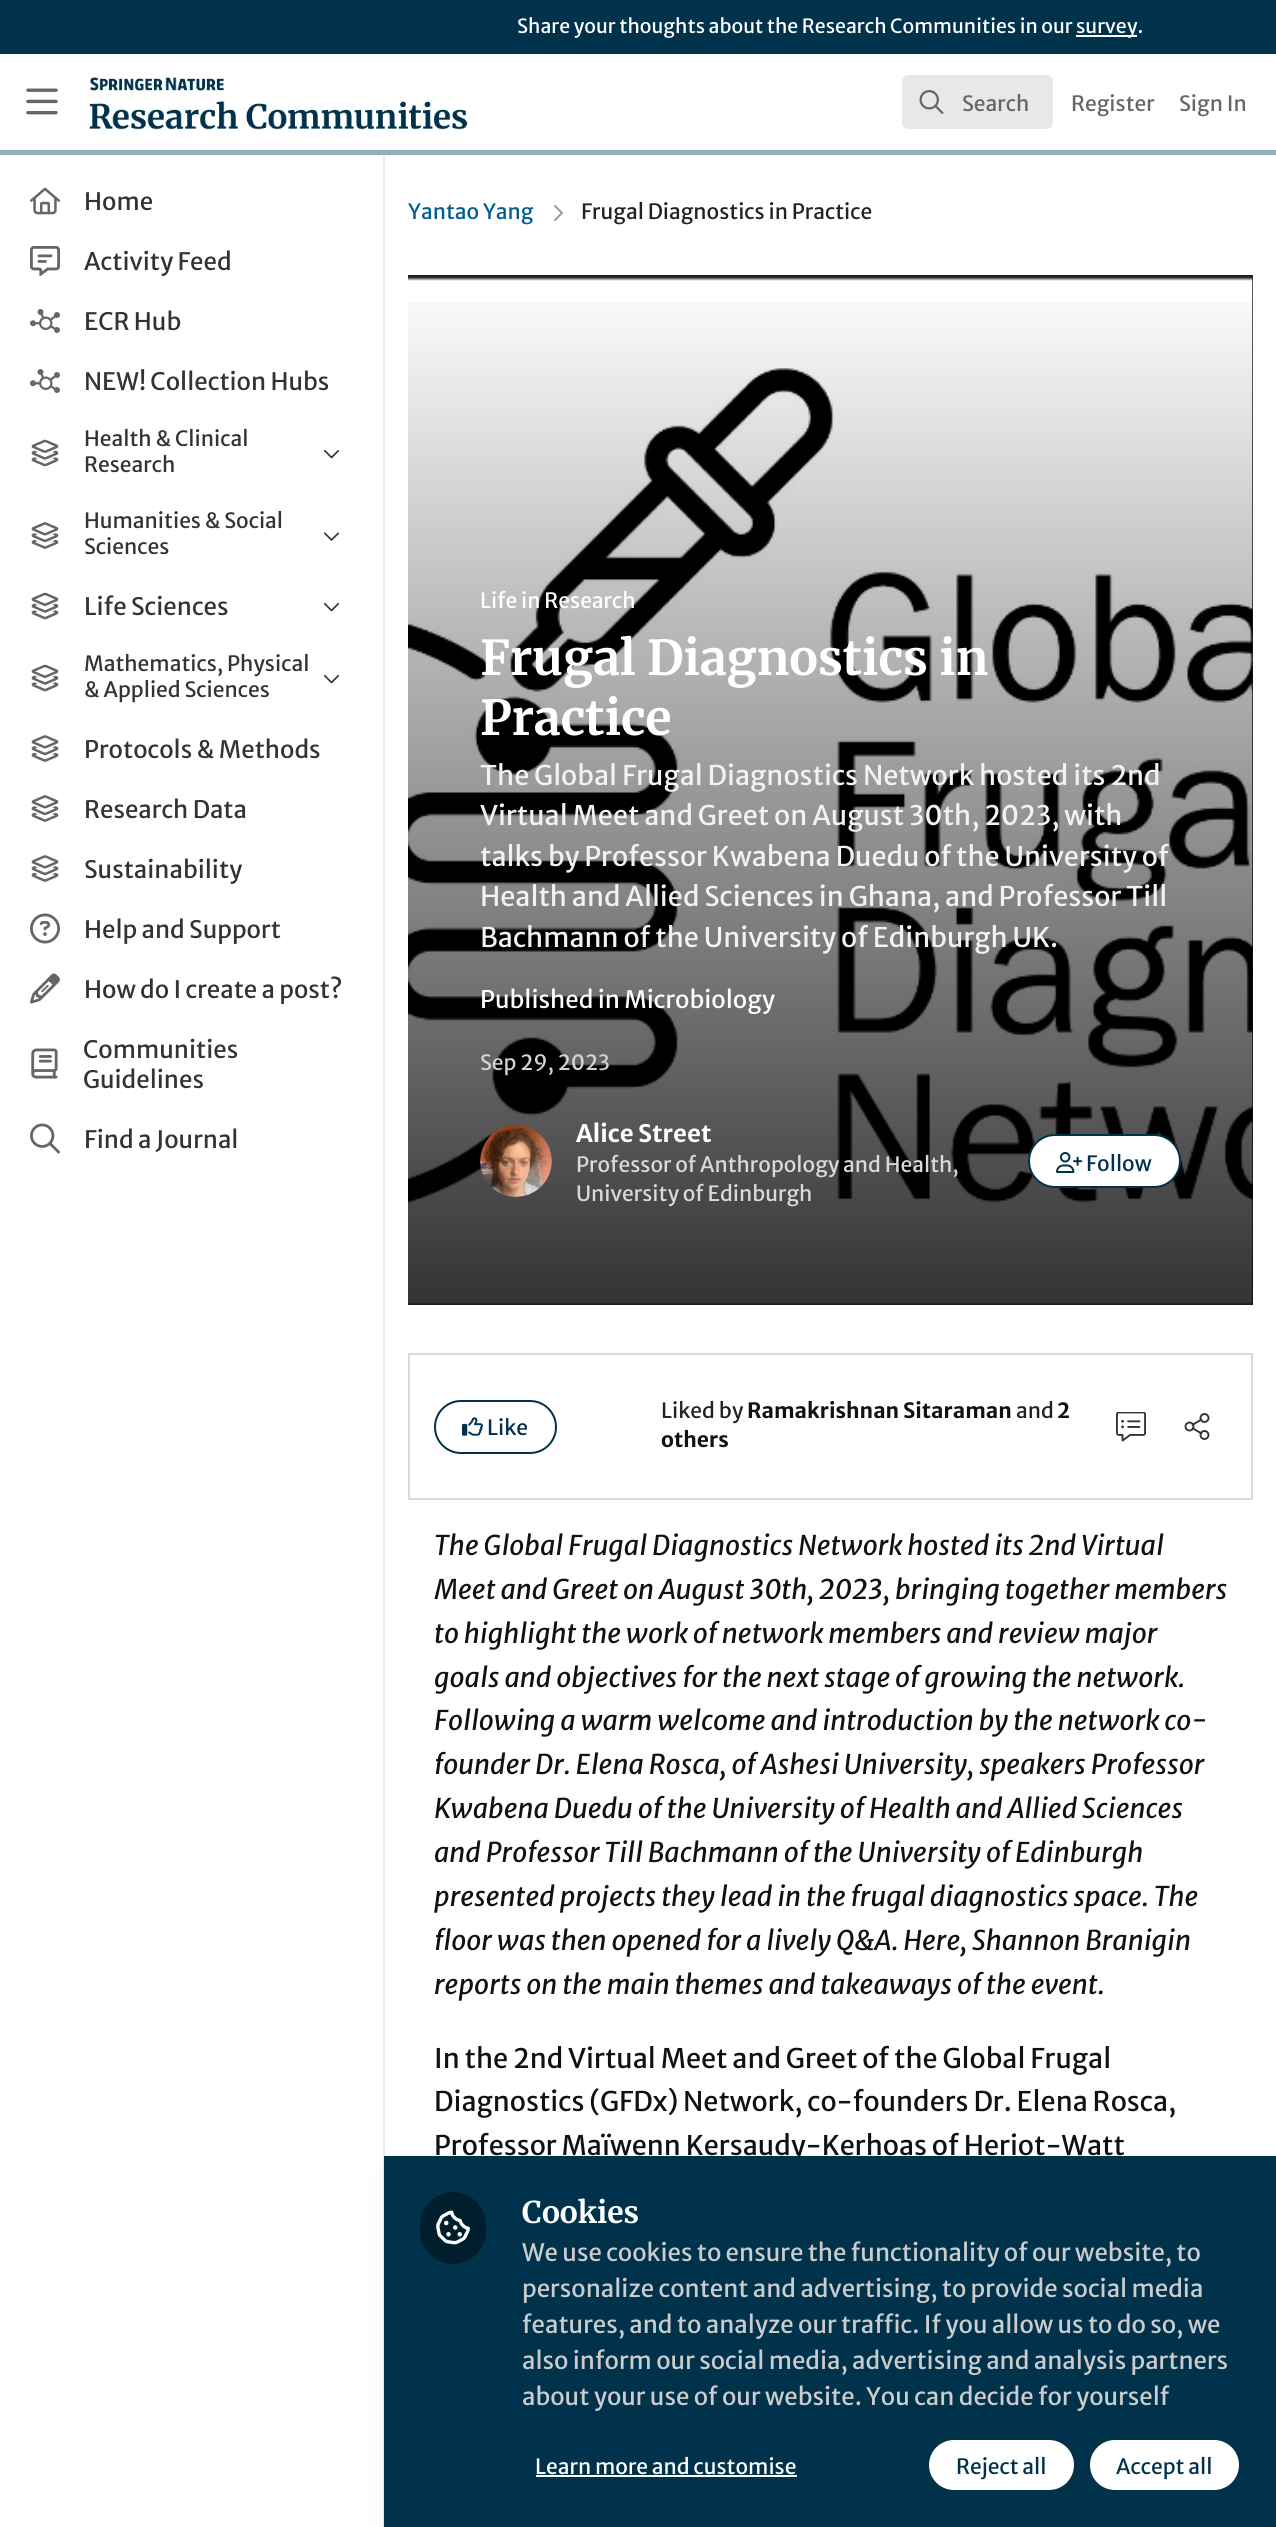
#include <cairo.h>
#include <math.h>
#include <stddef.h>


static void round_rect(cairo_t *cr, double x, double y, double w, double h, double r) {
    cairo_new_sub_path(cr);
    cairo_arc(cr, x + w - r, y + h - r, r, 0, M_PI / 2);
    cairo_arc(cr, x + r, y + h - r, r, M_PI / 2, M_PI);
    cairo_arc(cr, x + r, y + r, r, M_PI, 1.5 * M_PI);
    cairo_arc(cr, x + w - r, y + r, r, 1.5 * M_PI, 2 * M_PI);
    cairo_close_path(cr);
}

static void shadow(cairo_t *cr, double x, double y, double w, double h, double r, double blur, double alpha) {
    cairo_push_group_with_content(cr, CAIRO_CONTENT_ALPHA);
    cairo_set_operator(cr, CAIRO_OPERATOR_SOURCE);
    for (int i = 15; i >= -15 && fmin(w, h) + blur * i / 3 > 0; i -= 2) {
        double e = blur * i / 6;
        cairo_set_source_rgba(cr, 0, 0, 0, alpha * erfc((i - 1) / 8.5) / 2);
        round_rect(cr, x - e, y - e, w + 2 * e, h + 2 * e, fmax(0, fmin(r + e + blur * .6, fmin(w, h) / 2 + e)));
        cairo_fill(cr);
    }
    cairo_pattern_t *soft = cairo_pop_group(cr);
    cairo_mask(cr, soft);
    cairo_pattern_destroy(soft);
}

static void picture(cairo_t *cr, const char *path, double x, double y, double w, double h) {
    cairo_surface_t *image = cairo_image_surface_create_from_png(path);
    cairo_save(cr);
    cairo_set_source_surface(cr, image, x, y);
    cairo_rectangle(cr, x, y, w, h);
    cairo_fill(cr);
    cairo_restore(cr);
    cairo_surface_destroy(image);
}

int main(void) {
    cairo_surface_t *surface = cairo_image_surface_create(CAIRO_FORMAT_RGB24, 1276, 2527);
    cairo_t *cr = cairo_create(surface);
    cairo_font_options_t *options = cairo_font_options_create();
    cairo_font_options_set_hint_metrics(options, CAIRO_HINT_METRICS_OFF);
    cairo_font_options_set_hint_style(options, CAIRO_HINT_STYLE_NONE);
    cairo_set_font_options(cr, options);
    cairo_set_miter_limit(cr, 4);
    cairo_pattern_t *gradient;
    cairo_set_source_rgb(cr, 1, 1, 1);
    cairo_paint(cr);
    cairo_set_source_rgb(cr, 0.004, 0.196, 0.294);
    cairo_rectangle(cr, 0, 0, 1276, 54);
    cairo_fill(cr);
    cairo_select_font_face(cr, "Merriweather Sans", CAIRO_FONT_SLANT_NORMAL, CAIRO_FONT_WEIGHT_NORMAL);
    cairo_set_font_size(cr, 19.5);
    cairo_set_source_rgb(cr, 1, 1, 1);
    cairo_move_to(cr, 517, 33);
    cairo_show_text(cr, "Share your thoughts about the Research Communities in our");
    cairo_rectangle(cr, 1076, 35, 61, 2);
    cairo_fill(cr);
    cairo_move_to(cr, 1076, 33);
    cairo_show_text(cr, "survey.");
    cairo_set_source_rgb(cr, 0.91, 0.91, 0.91);
    cairo_rectangle(cr, 383, 150, 2, 2377);
    cairo_fill(cr);
    cairo_set_source_rgb(cr, 0.565, 0.69, 0.761);
    cairo_new_path(cr);
    cairo_move_to(cr, 0, 150);
    cairo_line_to(cr, 0, 155);
    cairo_line_to(cr, 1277, 155);
    cairo_line_to(cr, 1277, 59);
    cairo_line_to(cr, 1276, 59);
    cairo_line_to(cr, 1276, 150);
    cairo_close_path(cr);
    cairo_fill(cr);
    picture(cr, "img1.png", 26, 88, 32, 27);
    picture(cr, "img2.png", 89, 77, 379, 53);
    cairo_set_source_rgb(cr, 0.91, 0.91, 0.91);
    round_rect(cr, 902, 75, 151, 54, 6);
    cairo_fill(cr);
    picture(cr, "img3.png", 919, 90, 25, 24);
    cairo_set_font_size(cr, 21);
    cairo_set_source_rgb(cr, 0.4, 0.4, 0.4);
    cairo_move_to(cr, 962, 111);
    cairo_show_text(cr, "Search");
    cairo_move_to(cr, 1071, 111);
    cairo_show_text(cr, "Register");
    cairo_move_to(cr, 1179, 111);
    cairo_show_text(cr, "Sign In");
    picture(cr, "img4.png", 30, 187, 30, 28);
    cairo_set_font_size(cr, 24);
    cairo_set_source_rgb(cr, 0.2, 0.2, 0.2);
    cairo_move_to(cr, 84, 210);
    cairo_show_text(cr, "Home");
    picture(cr, "img5.png", 30, 246, 30, 30);
    cairo_move_to(cr, 84, 270);
    cairo_show_text(cr, "Activity Feed");
    picture(cr, "img6.png", 30, 309, 30, 24);
    cairo_move_to(cr, 84, 330);
    cairo_show_text(cr, "ECR Hub");
    picture(cr, "img6.png", 30, 369, 30, 24);
    cairo_move_to(cr, 84, 390);
    cairo_show_text(cr, "NEW! Collection Hubs");
    picture(cr, "img7.png", 31, 439, 28, 28);
    cairo_set_font_size(cr, 21);
    cairo_move_to(cr, 84, 446);
    cairo_show_text(cr, "Health & Clinical");
    cairo_move_to(cr, 84, 472);
    cairo_show_text(cr, "Research");
    picture(cr, "img8.png", 324, 450, 15, 9);
    picture(cr, "img9.png", 31, 522, 28, 27);
    cairo_move_to(cr, 84, 528);
    cairo_show_text(cr, "Humanities & Social");
    cairo_move_to(cr, 84, 554);
    cairo_show_text(cr, "Sciences");
    picture(cr, "img10.png", 324, 532, 15, 9);
    picture(cr, "img7.png", 31, 592, 28, 28);
    cairo_set_font_size(cr, 24);
    cairo_move_to(cr, 84, 615);
    cairo_show_text(cr, "Life Sciences");
    picture(cr, "img8.png", 324, 603, 15, 9);
    picture(cr, "img7.png", 31, 664, 28, 28);
    cairo_set_font_size(cr, 21);
    cairo_move_to(cr, 84, 671);
    cairo_show_text(cr, "Mathematics, Physical");
    cairo_move_to(cr, 84, 697);
    cairo_show_text(cr, "& Applied Sciences");
    picture(cr, "img8.png", 324, 675, 15, 9);
    picture(cr, "img9.png", 31, 735, 28, 27);
    cairo_set_font_size(cr, 24);
    cairo_move_to(cr, 84, 758);
    cairo_show_text(cr, "Protocols & Methods");
    picture(cr, "img9.png", 31, 795, 28, 27);
    cairo_move_to(cr, 84, 818);
    cairo_show_text(cr, "Research Data");
    picture(cr, "img9.png", 31, 855, 28, 27);
    cairo_move_to(cr, 84, 878);
    cairo_show_text(cr, "Sustainability");
    picture(cr, "img11.png", 30, 913, 30, 31);
    cairo_move_to(cr, 84, 938);
    cairo_show_text(cr, "Help and Support");
    picture(cr, "img12.png", 30, 973, 30, 31);
    cairo_move_to(cr, 84, 998);
    cairo_show_text(cr, "How do I create a post?");
    picture(cr, "img13.png", 31, 1048, 27, 31);
    cairo_move_to(cr, 83, 1058);
    cairo_show_text(cr, "Communities");
    cairo_move_to(cr, 83, 1088);
    cairo_show_text(cr, "Guidelines");
    picture(cr, "img14.png", 30, 1123, 30, 31);
    cairo_move_to(cr, 84, 1148);
    cairo_show_text(cr, "Find a Journal");
    cairo_set_font_size(cr, 21);
    cairo_set_source_rgb(cr, 0.008, 0.369, 0.553);
    cairo_move_to(cr, 408, 219);
    cairo_show_text(cr, "Yantao Yang");
    cairo_new_path(cr);
    cairo_move_to(cr, 555, 206);
    cairo_line_to(cr, 562, 213);
    cairo_line_to(cr, 555, 220);
    cairo_set_source_rgb(cr, 0.6, 0.6, 0.6);
    cairo_set_line_cap(cr, CAIRO_LINE_CAP_ROUND);
    cairo_set_line_join(cr, CAIRO_LINE_JOIN_ROUND);
    cairo_stroke(cr);
    cairo_set_source_rgb(cr, 0.133, 0.133, 0.133);
    cairo_move_to(cr, 581, 219);
    cairo_show_text(cr, "Frugal Diagnostics in Practice");
    cairo_rectangle(cr, 408, 275, 845, 1030);
    cairo_fill(cr);
    picture(cr, "img15.png", 408, 277, 845, 1028);
    gradient = cairo_pattern_create_linear(830, 274, 830, 1305);
    cairo_pattern_add_color_stop_rgba(gradient, 0, 0, 0, 0, 0);
    cairo_pattern_add_color_stop_rgba(gradient, 1, 0, 0, 0, 0.8);
    cairo_set_source(cr, gradient);
    cairo_pattern_destroy(gradient);
    cairo_rectangle(cr, 408, 302, 845, 1003);
    cairo_fill(cr);
    cairo_set_source_rgb(cr, 1, 1, 1);
    cairo_move_to(cr, 480, 608);
    cairo_show_text(cr, "Life in Research");
    cairo_select_font_face(cr, "Merriweather", CAIRO_FONT_SLANT_NORMAL, CAIRO_FONT_WEIGHT_BOLD);
    cairo_set_font_size(cr, 48);
    cairo_move_to(cr, 480, 675);
    cairo_show_text(cr, "Frugal Diagnostics in");
    cairo_move_to(cr, 480, 735);
    cairo_show_text(cr, "Practice");
    cairo_select_font_face(cr, "Merriweather Sans", CAIRO_FONT_SLANT_NORMAL, CAIRO_FONT_WEIGHT_NORMAL);
    cairo_set_font_size(cr, 27);
    cairo_set_source_rgb(cr, 0.949, 0.949, 0.949);
    cairo_move_to(cr, 480, 785);
    cairo_show_text(cr, "The Global Frugal Diagnostics Network hosted its 2nd");
    cairo_move_to(cr, 480, 825);
    cairo_show_text(cr, "Virtual Meet and Greet on August 30th, 2023, with");
    cairo_move_to(cr, 480, 866);
    cairo_show_text(cr, "talks by Professor Kwabena Duedu of the University of");
    cairo_move_to(cr, 480, 906);
    cairo_show_text(cr, "Health and Allied Sciences in Ghana, and Professor Till");
    cairo_move_to(cr, 480, 947);
    cairo_show_text(cr, "Bachmann of the University of Edinburgh UK.");
    cairo_set_font_size(cr, 24);
    cairo_set_source_rgb(cr, 1, 1, 1);
    cairo_move_to(cr, 480, 1008);
    cairo_show_text(cr, "Published in Microbiology");
    cairo_set_font_size(cr, 21);
    cairo_set_source_rgb(cr, 0.827, 0.827, 0.827);
    cairo_move_to(cr, 480, 1070);
    cairo_show_text(cr, "Sep 29, 2023");
    picture(cr, "img16.png", 480, 1125, 72, 72);
    cairo_select_font_face(cr, "Merriweather Sans", CAIRO_FONT_SLANT_NORMAL, CAIRO_FONT_WEIGHT_BOLD);
    cairo_set_font_size(cr, 24);
    cairo_set_source_rgb(cr, 1, 1, 1);
    cairo_move_to(cr, 576, 1142);
    cairo_show_text(cr, "Alice Street");
    cairo_select_font_face(cr, "Merriweather Sans", CAIRO_FONT_SLANT_NORMAL, CAIRO_FONT_WEIGHT_NORMAL);
    cairo_set_font_size(cr, 21);
    cairo_set_source_rgb(cr, 0.855, 0.855, 0.855);
    cairo_move_to(cr, 576, 1172);
    cairo_show_text(cr, "Professor of Anthropology and Health,");
    cairo_move_to(cr, 576, 1201);
    cairo_show_text(cr, "University of Edinburgh");
    cairo_set_source_rgb(cr, 1, 1, 1);
    round_rect(cr, 1029, 1135, 151, 52, 26);
    cairo_fill_preserve(cr);
    cairo_set_source_rgb(cr, 0.004, 0.196, 0.294);
    cairo_set_line_cap(cr, CAIRO_LINE_CAP_BUTT);
    cairo_set_line_join(cr, CAIRO_LINE_JOIN_MITER);
    cairo_stroke(cr);
    picture(cr, "img17.png", 1056, 1152, 27, 21);
    cairo_move_to(cr, 1086, 1171);
    cairo_show_text(cr, "Follow");
    cairo_rectangle(cr, 409, 1354, 843, 145);
    cairo_set_source_rgb(cr, 0.855, 0.855, 0.855);
    cairo_stroke(cr);
    round_rect(cr, 435, 1401, 121, 52, 26);
    cairo_set_source_rgb(cr, 0.004, 0.196, 0.294);
    cairo_stroke(cr);
    picture(cr, "img18.png", 462, 1417, 21, 19);
    cairo_move_to(cr, 487, 1435);
    cairo_show_text(cr, "Like");
    cairo_set_source_rgb(cr, 0.133, 0.133, 0.133);
    cairo_move_to(cr, 661, 1418);
    cairo_show_text(cr, "Liked by");
    cairo_select_font_face(cr, "Merriweather Sans", CAIRO_FONT_SLANT_NORMAL, CAIRO_FONT_WEIGHT_BOLD);
    cairo_set_source_rgb(cr, 0.067, 0.067, 0.067);
    cairo_move_to(cr, 747, 1418);
    cairo_show_text(cr, "Ramakrishnan Sitaraman");
    cairo_select_font_face(cr, "Merriweather Sans", CAIRO_FONT_SLANT_NORMAL, CAIRO_FONT_WEIGHT_NORMAL);
    cairo_set_source_rgb(cr, 0.133, 0.133, 0.133);
    cairo_move_to(cr, 1016, 1418);
    cairo_show_text(cr, "and");
    cairo_select_font_face(cr, "Merriweather Sans", CAIRO_FONT_SLANT_NORMAL, CAIRO_FONT_WEIGHT_BOLD);
    cairo_set_source_rgb(cr, 0.067, 0.067, 0.067);
    cairo_move_to(cr, 1057, 1418);
    cairo_show_text(cr, "2");
    cairo_move_to(cr, 661, 1447);
    cairo_show_text(cr, "others");
    picture(cr, "img19.png", 1116, 1412, 30, 30);
    picture(cr, "img20.png", 1184, 1413, 26, 27);
    cairo_select_font_face(cr, "Merriweather Sans", CAIRO_FONT_SLANT_ITALIC, CAIRO_FONT_WEIGHT_NORMAL);
    cairo_set_font_size(cr, 27);
    cairo_move_to(cr, 434, 1555);
    cairo_show_text(cr, "The Global Frugal Diagnostics Network hosted its 2nd Virtual");
    cairo_move_to(cr, 434, 1599);
    cairo_show_text(cr, "Meet and Greet on August 30th, 2023, bringing together members");
    cairo_move_to(cr, 434, 1643);
    cairo_show_text(cr, "to highlight the work of network members and review major");
    cairo_move_to(cr, 434, 1687);
    cairo_show_text(cr, "goals and objectives for the next stage of growing the network.");
    cairo_move_to(cr, 434, 1730);
    cairo_show_text(cr, "Following a warm welcome and introduction by the network co-");
    cairo_move_to(cr, 434, 1774);
    cairo_show_text(cr, "founder Dr. Elena Rosca, of Ashesi University, speakers Professor");
    cairo_move_to(cr, 434, 1818);
    cairo_show_text(cr, "Kwabena Duedu of the University of Health and Allied Sciences");
    cairo_move_to(cr, 434, 1862);
    cairo_show_text(cr, "and Professor Till Bachmann of the University of Edinburgh");
    cairo_move_to(cr, 434, 1906);
    cairo_show_text(cr, "presented projects they lead in the frugal diagnostics space. The");
    cairo_move_to(cr, 434, 1950);
    cairo_show_text(cr, "floor was then opened for a lively Q&A. Here, Shannon Branigin");
    cairo_move_to(cr, 434, 1994);
    cairo_show_text(cr, "reports on the main themes and takeaways of the event.");
    cairo_select_font_face(cr, "Merriweather Sans", CAIRO_FONT_SLANT_NORMAL, CAIRO_FONT_WEIGHT_NORMAL);
    cairo_move_to(cr, 434, 2068);
    cairo_show_text(cr, "In the 2nd Virtual Meet and Greet of the Global Frugal");
    cairo_move_to(cr, 434, 2111);
    cairo_show_text(cr, "Diagnostics (GFDx) Network, co-founders Dr. Elena Rosca,");
    cairo_move_to(cr, 434, 2155);
    cairo_show_text(cr, "Professor Maïwenn Kersaudy-Kerhoas of Heriot-Watt");
    cairo_set_source_rgb(cr, 0, 0, 0);
    shadow(cr, 389, 2175, 883, 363, 0, 11, 0.1);
    cairo_set_source_rgb(cr, 0.004, 0.196, 0.294);
    cairo_rectangle(cr, 384, 2156, 892, 371);
    cairo_fill(cr);
    cairo_set_source_rgb(cr, 0.004, 0.118, 0.176);
    round_rect(cr, 420, 2192, 66, 72, 33);
    cairo_fill(cr);
    picture(cr, "img21.png", 436, 2210, 34, 35);
    cairo_select_font_face(cr, "Merriweather", CAIRO_FONT_SLANT_NORMAL, CAIRO_FONT_WEIGHT_BOLD);
    cairo_set_font_size(cr, 30);
    cairo_set_source_rgb(cr, 1, 1, 1);
    cairo_move_to(cr, 522, 2223);
    cairo_show_text(cr, "Cookies");
    cairo_select_font_face(cr, "Merriweather Sans", CAIRO_FONT_SLANT_NORMAL, CAIRO_FONT_WEIGHT_NORMAL);
    cairo_set_font_size(cr, 24);
    cairo_set_source_rgb(cr, 0.8, 0.8, 0.8);
    cairo_move_to(cr, 522, 2261);
    cairo_show_text(cr, "We use cookies to ensure the functionality of our website, to");
    cairo_move_to(cr, 522, 2297);
    cairo_show_text(cr, "personalize content and advertising, to provide social media");
    cairo_move_to(cr, 522, 2333);
    cairo_show_text(cr, "features, and to analyze our traffic. If you allow us to do so, we");
    cairo_move_to(cr, 522, 2369);
    cairo_show_text(cr, "also inform our social media, advertising and analysis partners");
    cairo_move_to(cr, 522, 2405);
    cairo_show_text(cr, "about your use of our website. You can decide for yourself");
    cairo_set_font_size(cr, 21);
    cairo_set_source_rgb(cr, 1, 1, 1);
    cairo_move_to(cr, 535, 2474);
    cairo_show_text(cr, "Learn more and customise");
    cairo_rectangle(cr, 536, 2475, 261, 2);
    cairo_fill(cr);
    round_rect(cr, 928, 2439, 147, 52, 26);
    cairo_fill_preserve(cr);
    cairo_set_source_rgb(cr, 0.004, 0.196, 0.294);
    cairo_stroke(cr);
    cairo_move_to(cr, 956, 2474);
    cairo_show_text(cr, "Reject all");
    cairo_set_source_rgb(cr, 1, 1, 1);
    round_rect(cr, 1089, 2439, 151, 52, 26);
    cairo_fill_preserve(cr);
    cairo_set_source_rgb(cr, 0.004, 0.196, 0.294);
    cairo_stroke(cr);
    cairo_move_to(cr, 1116, 2474);
    cairo_show_text(cr, "Accept all");
    cairo_surface_write_to_png(surface, "page.png");
    cairo_font_options_destroy(options);
    cairo_destroy(cr);
    cairo_surface_destroy(surface);
    return 0;
}
